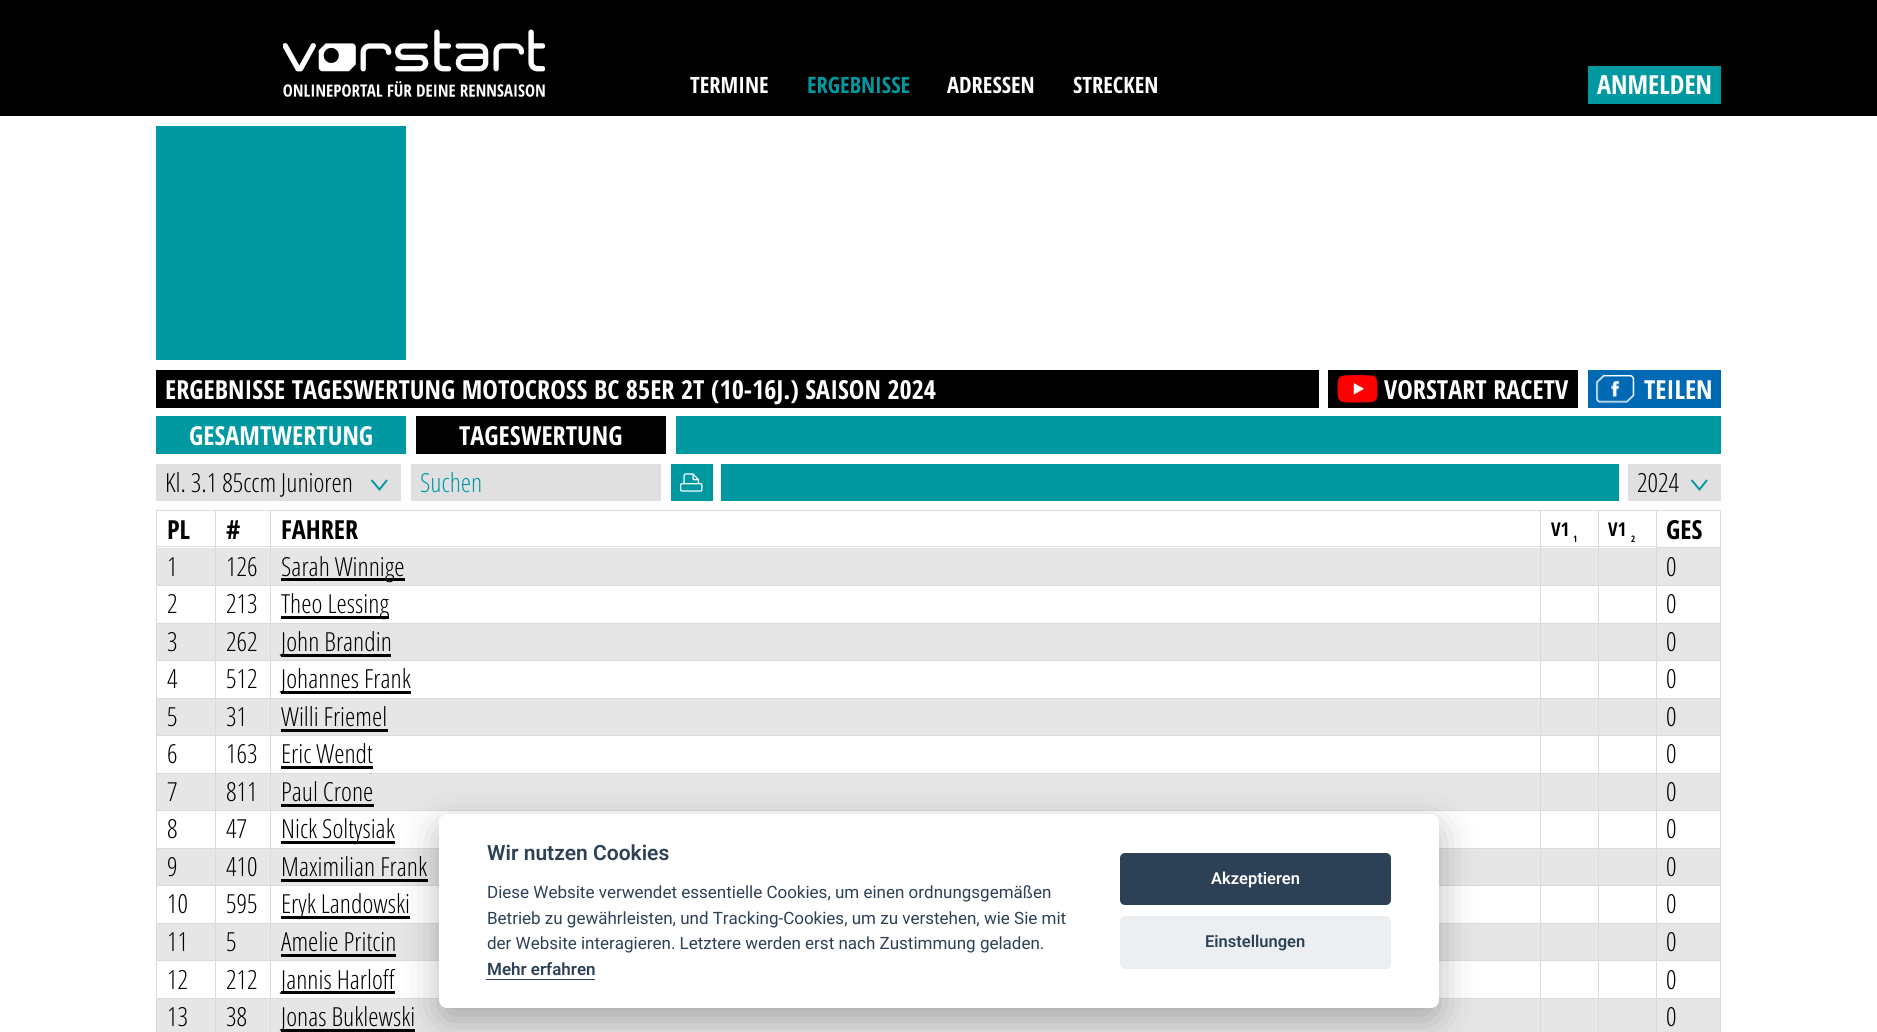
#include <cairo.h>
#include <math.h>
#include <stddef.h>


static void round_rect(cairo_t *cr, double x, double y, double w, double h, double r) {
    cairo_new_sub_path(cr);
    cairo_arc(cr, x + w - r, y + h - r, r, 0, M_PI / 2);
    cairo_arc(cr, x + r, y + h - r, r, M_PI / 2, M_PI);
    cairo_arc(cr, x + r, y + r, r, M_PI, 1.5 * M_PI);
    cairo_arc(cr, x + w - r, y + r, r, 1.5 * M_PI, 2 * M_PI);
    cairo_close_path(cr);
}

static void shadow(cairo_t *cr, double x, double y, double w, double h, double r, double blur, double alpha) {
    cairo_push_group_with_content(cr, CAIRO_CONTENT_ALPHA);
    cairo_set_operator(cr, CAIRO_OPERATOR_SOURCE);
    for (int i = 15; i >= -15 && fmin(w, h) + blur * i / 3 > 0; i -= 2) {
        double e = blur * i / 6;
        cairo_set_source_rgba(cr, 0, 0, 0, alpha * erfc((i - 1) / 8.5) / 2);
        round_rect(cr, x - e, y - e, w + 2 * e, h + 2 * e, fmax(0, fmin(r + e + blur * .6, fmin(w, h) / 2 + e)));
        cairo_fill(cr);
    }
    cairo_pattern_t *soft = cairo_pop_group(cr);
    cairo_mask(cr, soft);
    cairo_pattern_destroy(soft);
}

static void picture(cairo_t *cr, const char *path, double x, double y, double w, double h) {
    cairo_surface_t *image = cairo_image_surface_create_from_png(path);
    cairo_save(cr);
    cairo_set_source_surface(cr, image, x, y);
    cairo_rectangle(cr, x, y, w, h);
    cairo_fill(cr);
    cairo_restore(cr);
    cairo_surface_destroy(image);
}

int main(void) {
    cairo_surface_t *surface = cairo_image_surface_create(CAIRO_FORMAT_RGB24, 1877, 1032);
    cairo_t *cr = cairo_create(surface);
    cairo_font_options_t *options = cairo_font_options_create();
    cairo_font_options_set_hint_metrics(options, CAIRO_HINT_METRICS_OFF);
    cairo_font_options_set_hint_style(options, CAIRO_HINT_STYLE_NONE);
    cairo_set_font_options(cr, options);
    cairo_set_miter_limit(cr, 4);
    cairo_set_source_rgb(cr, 1, 1, 1);
    cairo_paint(cr);
    cairo_set_source_rgb(cr, 0, 0, 0);
    cairo_rectangle(cr, 0, 0, 1877, 116);
    cairo_fill(cr);
    picture(cr, "img1.png", 283, 29, 262, 68);
    cairo_select_font_face(cr, "Open Sans Condensed", CAIRO_FONT_SLANT_NORMAL, CAIRO_FONT_WEIGHT_BOLD);
    cairo_set_font_size(cr, 22.5);
    cairo_set_source_rgb(cr, 1, 1, 1);
    cairo_move_to(cr, 690, 93);
    cairo_show_text(cr, "TERMINE");
    cairo_set_source_rgb(cr, 0, 0.596, 0.631);
    cairo_move_to(cr, 807, 93);
    cairo_show_text(cr, "ERGEBNISSE");
    cairo_set_source_rgb(cr, 1, 1, 1);
    cairo_move_to(cr, 947, 93);
    cairo_show_text(cr, "ADRESSEN");
    cairo_move_to(cr, 1073, 93);
    cairo_show_text(cr, "STRECKEN");
    cairo_set_source_rgb(cr, 0, 0.596, 0.631);
    cairo_rectangle(cr, 1588, 66, 133, 38);
    cairo_fill(cr);
    cairo_set_font_size(cr, 26.25);
    cairo_set_source_rgb(cr, 1, 1, 1);
    cairo_move_to(cr, 1597, 94);
    cairo_show_text(cr, "ANMELDEN");
    cairo_set_source_rgb(cr, 0, 0.596, 0.631);
    cairo_rectangle(cr, 156, 126, 250, 234);
    cairo_fill(cr);
    cairo_set_source_rgb(cr, 0, 0, 0);
    cairo_rectangle(cr, 156, 370, 1422, 38);
    cairo_fill(cr);
    cairo_set_source_rgb(cr, 1, 1, 1);
    cairo_move_to(cr, 165, 399);
    cairo_show_text(cr, "ERGEBNISSE TAGESWERTUNG MOTOCROSS BC 85ER 2T (10-16J.) SAISON 2024");
    cairo_rectangle(cr, 1319, 370, 9, 38);
    cairo_fill(cr);
    picture(cr, "img2.png", 1337, 375, 41, 28);
    cairo_move_to(cr, 1384, 399);
    cairo_show_text(cr, "VORSTART RACETV");
    cairo_set_source_rgb(cr, 0, 0.412, 0.706);
    cairo_rectangle(cr, 1588, 370, 133, 38);
    cairo_fill(cr);
    picture(cr, "img3.png", 1596, 375, 39, 28);
    cairo_set_source_rgb(cr, 1, 1, 1);
    cairo_move_to(cr, 1644, 399);
    cairo_show_text(cr, "TEILEN");
    cairo_set_source_rgb(cr, 0, 0.596, 0.631);
    cairo_rectangle(cr, 156, 416, 1565, 38);
    cairo_fill(cr);
    cairo_set_source_rgb(cr, 1, 1, 1);
    cairo_move_to(cr, 189, 445);
    cairo_show_text(cr, "GESAMTWERTUNG");
    cairo_rectangle(cr, 406, 416, 10, 38);
    cairo_fill(cr);
    cairo_set_source_rgb(cr, 0, 0, 0);
    cairo_rectangle(cr, 416, 416, 250, 38);
    cairo_fill(cr);
    cairo_set_source_rgb(cr, 1, 1, 1);
    cairo_move_to(cr, 459, 445);
    cairo_show_text(cr, "TAGESWERTUNG");
    cairo_rectangle(cr, 666, 416, 10, 38);
    cairo_fill(cr);
    cairo_set_source_rgb(cr, 0, 0.596, 0.631);
    cairo_rectangle(cr, 671, 464, 948, 37);
    cairo_fill(cr);
    cairo_set_source_rgb(cr, 0.878, 0.878, 0.878);
    cairo_rectangle(cr, 156, 464, 245, 37);
    cairo_fill(cr);
    cairo_select_font_face(cr, "Open Sans Condensed Light", CAIRO_FONT_SLANT_NORMAL, CAIRO_FONT_WEIGHT_NORMAL);
    cairo_set_source_rgb(cr, 0, 0, 0);
    cairo_move_to(cr, 165, 492);
    cairo_show_text(cr, "Kl. 3.1 85ccm Junioren");
    cairo_new_path(cr);
    cairo_move_to(cr, 371.5, 480);
    cairo_line_to(cr, 379.5, 489.5);
    cairo_line_to(cr, 387, 480);
    cairo_set_source_rgb(cr, 0.016, 0.596, 0.631);
    cairo_stroke(cr);
    cairo_set_source_rgb(cr, 0.878, 0.878, 0.878);
    cairo_rectangle(cr, 411, 464, 250, 37);
    cairo_fill(cr);
    cairo_set_source_rgb(cr, 0, 0.596, 0.631);
    cairo_move_to(cr, 420, 492);
    cairo_show_text(cr, "Suchen");
    picture(cr, "img4.png", 680, 473, 23, 19);
    cairo_set_source_rgb(cr, 1, 1, 1);
    cairo_rectangle(cr, 713, 464, 8, 37);
    cairo_fill(cr);
    cairo_set_source_rgb(cr, 0.878, 0.878, 0.878);
    cairo_rectangle(cr, 1628, 464, 93, 37);
    cairo_fill(cr);
    cairo_set_source_rgb(cr, 0, 0, 0);
    cairo_move_to(cr, 1637, 492);
    cairo_show_text(cr, "2024");
    cairo_new_path(cr);
    cairo_move_to(cr, 1691.5, 480);
    cairo_line_to(cr, 1699.5, 489.5);
    cairo_line_to(cr, 1707, 480);
    cairo_set_source_rgb(cr, 0.016, 0.596, 0.631);
    cairo_stroke(cr);
    cairo_set_source_rgb(cr, 0.863, 0.859, 0.863);
    cairo_rectangle(cr, 156, 510, 1500, 1);
    cairo_fill(cr);
    cairo_rectangle(cr, 156, 546, 1500, 1);
    cairo_fill(cr);
    cairo_rectangle(cr, 156, 510, 1, 38);
    cairo_fill(cr);
    cairo_select_font_face(cr, "Open Sans Condensed", CAIRO_FONT_SLANT_NORMAL, CAIRO_FONT_WEIGHT_BOLD);
    cairo_set_source_rgb(cr, 0, 0, 0);
    cairo_move_to(cr, 167, 539);
    cairo_show_text(cr, "PL");
    cairo_set_source_rgb(cr, 0.863, 0.859, 0.863);
    cairo_rectangle(cr, 215, 510, 1, 38);
    cairo_fill(cr);
    cairo_set_source_rgb(cr, 0, 0, 0);
    cairo_move_to(cr, 226, 539);
    cairo_show_text(cr, "#");
    cairo_set_source_rgb(cr, 0.863, 0.859, 0.863);
    cairo_rectangle(cr, 270, 510, 1, 38);
    cairo_fill(cr);
    cairo_set_source_rgb(cr, 0, 0, 0);
    cairo_move_to(cr, 281, 539);
    cairo_show_text(cr, "FAHRER");
    cairo_set_source_rgb(cr, 0.863, 0.859, 0.863);
    cairo_rectangle(cr, 1540, 510, 1, 38);
    cairo_fill(cr);
    cairo_set_font_size(cr, 19);
    cairo_set_source_rgb(cr, 0, 0, 0);
    cairo_move_to(cr, 1551, 536);
    cairo_show_text(cr, "V1");
    cairo_set_font_size(cr, 9);
    cairo_move_to(cr, 1573, 542);
    cairo_show_text(cr, "1");
    cairo_set_source_rgb(cr, 0.863, 0.859, 0.863);
    cairo_rectangle(cr, 1598, 510, 1, 38);
    cairo_fill(cr);
    cairo_set_font_size(cr, 19);
    cairo_set_source_rgb(cr, 0, 0, 0);
    cairo_move_to(cr, 1608, 536);
    cairo_show_text(cr, "V1");
    cairo_set_font_size(cr, 9);
    cairo_move_to(cr, 1631, 542);
    cairo_show_text(cr, "2");
    cairo_rectangle(cr, 1656.5, 510.5, 64, 37);
    cairo_set_source_rgb(cr, 0.863, 0.859, 0.863);
    cairo_set_line_width(cr, 1);
    cairo_stroke(cr);
    cairo_set_font_size(cr, 26.25);
    cairo_set_source_rgb(cr, 0, 0, 0);
    cairo_move_to(cr, 1666, 539);
    cairo_show_text(cr, "GES");
    cairo_set_source_rgb(cr, 0.902, 0.902, 0.902);
    cairo_rectangle(cr, 157, 548, 58, 37);
    cairo_fill(cr);
    cairo_set_source_rgb(cr, 0.863, 0.859, 0.863);
    cairo_rectangle(cr, 156, 585, 1500, 1);
    cairo_fill(cr);
    cairo_rectangle(cr, 156, 548, 1, 38);
    cairo_fill(cr);
    cairo_select_font_face(cr, "Open Sans Condensed Light", CAIRO_FONT_SLANT_NORMAL, CAIRO_FONT_WEIGHT_NORMAL);
    cairo_set_source_rgb(cr, 0, 0, 0);
    cairo_move_to(cr, 167, 576);
    cairo_show_text(cr, "1");
    cairo_set_source_rgb(cr, 0.902, 0.902, 0.902);
    cairo_rectangle(cr, 216, 548, 54, 37);
    cairo_fill(cr);
    cairo_set_source_rgb(cr, 0.863, 0.859, 0.863);
    cairo_rectangle(cr, 215, 548, 1, 38);
    cairo_fill(cr);
    cairo_set_source_rgb(cr, 0, 0, 0);
    cairo_move_to(cr, 226, 576);
    cairo_show_text(cr, "126");
    cairo_set_source_rgb(cr, 0.902, 0.902, 0.902);
    cairo_rectangle(cr, 271, 548, 1269, 37);
    cairo_fill(cr);
    cairo_set_source_rgb(cr, 0.863, 0.859, 0.863);
    cairo_rectangle(cr, 270, 548, 1, 38);
    cairo_fill(cr);
    cairo_set_source_rgb(cr, 0, 0, 0);
    cairo_rectangle(cr, 281, 578, 124, 3);
    cairo_fill(cr);
    cairo_move_to(cr, 281, 576);
    cairo_show_text(cr, "Sarah Winnige");
    cairo_set_source_rgb(cr, 0.902, 0.902, 0.902);
    cairo_rectangle(cr, 1541, 548, 57, 37);
    cairo_fill(cr);
    cairo_set_source_rgb(cr, 0.863, 0.859, 0.863);
    cairo_rectangle(cr, 1540, 548, 1, 38);
    cairo_fill(cr);
    cairo_set_source_rgb(cr, 0.902, 0.902, 0.902);
    cairo_rectangle(cr, 1599, 548, 57, 37);
    cairo_fill(cr);
    cairo_set_source_rgb(cr, 0.863, 0.859, 0.863);
    cairo_rectangle(cr, 1598, 548, 1, 38);
    cairo_fill(cr);
    cairo_set_source_rgb(cr, 0.902, 0.902, 0.902);
    cairo_rectangle(cr, 1657, 548, 63, 37);
    cairo_fill(cr);
    cairo_set_source_rgb(cr, 0.863, 0.859, 0.863);
    cairo_rectangle(cr, 1720, 548, 1, 484);
    cairo_fill(cr);
    cairo_rectangle(cr, 1656, 585, 65, 1);
    cairo_fill(cr);
    cairo_rectangle(cr, 1656, 548, 1, 38);
    cairo_fill(cr);
    cairo_set_source_rgb(cr, 0, 0, 0);
    cairo_move_to(cr, 1666, 576);
    cairo_show_text(cr, "0");
    cairo_set_source_rgb(cr, 0.863, 0.859, 0.863);
    cairo_rectangle(cr, 156, 623, 1565, 1);
    cairo_fill(cr);
    cairo_rectangle(cr, 156, 586, 1, 38);
    cairo_fill(cr);
    cairo_set_source_rgb(cr, 0, 0, 0);
    cairo_move_to(cr, 167, 613);
    cairo_show_text(cr, "2");
    cairo_set_source_rgb(cr, 0.863, 0.859, 0.863);
    cairo_rectangle(cr, 215, 586, 1, 38);
    cairo_fill(cr);
    cairo_set_source_rgb(cr, 0, 0, 0);
    cairo_move_to(cr, 226, 613);
    cairo_show_text(cr, "213");
    cairo_set_source_rgb(cr, 0.863, 0.859, 0.863);
    cairo_rectangle(cr, 270, 586, 1, 38);
    cairo_fill(cr);
    cairo_set_source_rgb(cr, 0, 0, 0);
    cairo_rectangle(cr, 281, 616, 108, 3);
    cairo_fill(cr);
    cairo_move_to(cr, 281, 613);
    cairo_show_text(cr, "Theo Lessing");
    cairo_set_source_rgb(cr, 0.863, 0.859, 0.863);
    cairo_rectangle(cr, 1540, 586, 1, 38);
    cairo_fill(cr);
    cairo_rectangle(cr, 1598, 586, 1, 38);
    cairo_fill(cr);
    cairo_rectangle(cr, 1656, 586, 1, 38);
    cairo_fill(cr);
    cairo_set_source_rgb(cr, 0, 0, 0);
    cairo_move_to(cr, 1666, 613);
    cairo_show_text(cr, "0");
    cairo_set_source_rgb(cr, 0.902, 0.902, 0.902);
    cairo_rectangle(cr, 157, 624, 58, 36);
    cairo_fill(cr);
    cairo_set_source_rgb(cr, 0.863, 0.859, 0.863);
    cairo_rectangle(cr, 156, 660, 1565, 1);
    cairo_fill(cr);
    cairo_rectangle(cr, 156, 624, 1, 37);
    cairo_fill(cr);
    cairo_set_source_rgb(cr, 0, 0, 0);
    cairo_move_to(cr, 167, 651);
    cairo_show_text(cr, "3");
    cairo_set_source_rgb(cr, 0.902, 0.902, 0.902);
    cairo_rectangle(cr, 216, 624, 54, 36);
    cairo_fill(cr);
    cairo_set_source_rgb(cr, 0.863, 0.859, 0.863);
    cairo_rectangle(cr, 215, 624, 1, 37);
    cairo_fill(cr);
    cairo_set_source_rgb(cr, 0, 0, 0);
    cairo_move_to(cr, 226, 651);
    cairo_show_text(cr, "262");
    cairo_set_source_rgb(cr, 0.902, 0.902, 0.902);
    cairo_rectangle(cr, 271, 624, 1269, 36);
    cairo_fill(cr);
    cairo_set_source_rgb(cr, 0.863, 0.859, 0.863);
    cairo_rectangle(cr, 270, 624, 1, 37);
    cairo_fill(cr);
    cairo_set_source_rgb(cr, 0, 0, 0);
    cairo_rectangle(cr, 281, 654, 110, 3);
    cairo_fill(cr);
    cairo_move_to(cr, 281, 651);
    cairo_show_text(cr, "John Brandin");
    cairo_set_source_rgb(cr, 0.902, 0.902, 0.902);
    cairo_rectangle(cr, 1541, 624, 57, 36);
    cairo_fill(cr);
    cairo_set_source_rgb(cr, 0.863, 0.859, 0.863);
    cairo_rectangle(cr, 1540, 624, 1, 37);
    cairo_fill(cr);
    cairo_set_source_rgb(cr, 0.902, 0.902, 0.902);
    cairo_rectangle(cr, 1599, 624, 57, 36);
    cairo_fill(cr);
    cairo_set_source_rgb(cr, 0.863, 0.859, 0.863);
    cairo_rectangle(cr, 1598, 624, 1, 37);
    cairo_fill(cr);
    cairo_set_source_rgb(cr, 0.902, 0.902, 0.902);
    cairo_rectangle(cr, 1657, 624, 63, 36);
    cairo_fill(cr);
    cairo_set_source_rgb(cr, 0.863, 0.859, 0.863);
    cairo_rectangle(cr, 1656, 624, 1, 37);
    cairo_fill(cr);
    cairo_set_source_rgb(cr, 0, 0, 0);
    cairo_move_to(cr, 1666, 651);
    cairo_show_text(cr, "0");
    cairo_set_source_rgb(cr, 0.863, 0.859, 0.863);
    cairo_rectangle(cr, 156, 698, 1565, 1);
    cairo_fill(cr);
    cairo_rectangle(cr, 156, 661, 1, 38);
    cairo_fill(cr);
    cairo_set_source_rgb(cr, 0, 0, 0);
    cairo_move_to(cr, 167, 688);
    cairo_show_text(cr, "4");
    cairo_set_source_rgb(cr, 0.863, 0.859, 0.863);
    cairo_rectangle(cr, 215, 661, 1, 38);
    cairo_fill(cr);
    cairo_set_source_rgb(cr, 0, 0, 0);
    cairo_move_to(cr, 226, 688);
    cairo_show_text(cr, "512");
    cairo_set_source_rgb(cr, 0.863, 0.859, 0.863);
    cairo_rectangle(cr, 270, 661, 1, 38);
    cairo_fill(cr);
    cairo_set_source_rgb(cr, 0, 0, 0);
    cairo_rectangle(cr, 281, 691, 130, 3);
    cairo_fill(cr);
    cairo_move_to(cr, 281, 688);
    cairo_show_text(cr, "Johannes Frank");
    cairo_set_source_rgb(cr, 0.863, 0.859, 0.863);
    cairo_rectangle(cr, 1540, 661, 1, 38);
    cairo_fill(cr);
    cairo_rectangle(cr, 1598, 661, 1, 38);
    cairo_fill(cr);
    cairo_rectangle(cr, 1656, 661, 1, 38);
    cairo_fill(cr);
    cairo_set_source_rgb(cr, 0, 0, 0);
    cairo_move_to(cr, 1666, 688);
    cairo_show_text(cr, "0");
    cairo_set_source_rgb(cr, 0.902, 0.902, 0.902);
    cairo_rectangle(cr, 157, 699, 58, 36);
    cairo_fill(cr);
    cairo_set_source_rgb(cr, 0.863, 0.859, 0.863);
    cairo_rectangle(cr, 156, 735, 1565, 1);
    cairo_fill(cr);
    cairo_rectangle(cr, 156, 699, 1, 37);
    cairo_fill(cr);
    cairo_set_source_rgb(cr, 0, 0, 0);
    cairo_move_to(cr, 167, 726);
    cairo_show_text(cr, "5");
    cairo_set_source_rgb(cr, 0.902, 0.902, 0.902);
    cairo_rectangle(cr, 216, 699, 54, 36);
    cairo_fill(cr);
    cairo_set_source_rgb(cr, 0.863, 0.859, 0.863);
    cairo_rectangle(cr, 215, 699, 1, 37);
    cairo_fill(cr);
    cairo_set_source_rgb(cr, 0, 0, 0);
    cairo_move_to(cr, 226, 726);
    cairo_show_text(cr, "31");
    cairo_set_source_rgb(cr, 0.902, 0.902, 0.902);
    cairo_rectangle(cr, 271, 699, 1269, 36);
    cairo_fill(cr);
    cairo_set_source_rgb(cr, 0.863, 0.859, 0.863);
    cairo_rectangle(cr, 270, 699, 1, 37);
    cairo_fill(cr);
    cairo_set_source_rgb(cr, 0, 0, 0);
    cairo_move_to(cr, 281, 726);
    cairo_show_text(cr, "Willi Friemel");
    cairo_rectangle(cr, 281, 729, 107, 3);
    cairo_fill(cr);
    cairo_set_source_rgb(cr, 0.902, 0.902, 0.902);
    cairo_rectangle(cr, 1541, 699, 57, 36);
    cairo_fill(cr);
    cairo_set_source_rgb(cr, 0.863, 0.859, 0.863);
    cairo_rectangle(cr, 1540, 699, 1, 37);
    cairo_fill(cr);
    cairo_set_source_rgb(cr, 0.902, 0.902, 0.902);
    cairo_rectangle(cr, 1599, 699, 57, 36);
    cairo_fill(cr);
    cairo_set_source_rgb(cr, 0.863, 0.859, 0.863);
    cairo_rectangle(cr, 1598, 699, 1, 37);
    cairo_fill(cr);
    cairo_set_source_rgb(cr, 0.902, 0.902, 0.902);
    cairo_rectangle(cr, 1657, 699, 63, 36);
    cairo_fill(cr);
    cairo_set_source_rgb(cr, 0.863, 0.859, 0.863);
    cairo_rectangle(cr, 1656, 699, 1, 37);
    cairo_fill(cr);
    cairo_set_source_rgb(cr, 0, 0, 0);
    cairo_move_to(cr, 1666, 726);
    cairo_show_text(cr, "0");
    cairo_set_source_rgb(cr, 0.863, 0.859, 0.863);
    cairo_rectangle(cr, 156, 773, 1565, 1);
    cairo_fill(cr);
    cairo_rectangle(cr, 156, 736, 1, 38);
    cairo_fill(cr);
    cairo_set_source_rgb(cr, 0, 0, 0);
    cairo_move_to(cr, 167, 763);
    cairo_show_text(cr, "6");
    cairo_set_source_rgb(cr, 0.863, 0.859, 0.863);
    cairo_rectangle(cr, 215, 736, 1, 38);
    cairo_fill(cr);
    cairo_set_source_rgb(cr, 0, 0, 0);
    cairo_move_to(cr, 226, 763);
    cairo_show_text(cr, "163");
    cairo_set_source_rgb(cr, 0.863, 0.859, 0.863);
    cairo_rectangle(cr, 270, 736, 1, 38);
    cairo_fill(cr);
    cairo_set_source_rgb(cr, 0, 0, 0);
    cairo_move_to(cr, 281, 763);
    cairo_show_text(cr, "Eric Wendt");
    cairo_rectangle(cr, 281, 766, 92, 3);
    cairo_fill(cr);
    cairo_set_source_rgb(cr, 0.863, 0.859, 0.863);
    cairo_rectangle(cr, 1540, 736, 1, 38);
    cairo_fill(cr);
    cairo_rectangle(cr, 1598, 736, 1, 38);
    cairo_fill(cr);
    cairo_rectangle(cr, 1656, 736, 1, 38);
    cairo_fill(cr);
    cairo_set_source_rgb(cr, 0, 0, 0);
    cairo_move_to(cr, 1666, 763);
    cairo_show_text(cr, "0");
    cairo_set_source_rgb(cr, 0.902, 0.902, 0.902);
    cairo_rectangle(cr, 157, 774, 58, 36);
    cairo_fill(cr);
    cairo_set_source_rgb(cr, 0.863, 0.859, 0.863);
    cairo_rectangle(cr, 156, 810, 1565, 1);
    cairo_fill(cr);
    cairo_rectangle(cr, 156, 774, 1, 37);
    cairo_fill(cr);
    cairo_set_source_rgb(cr, 0, 0, 0);
    cairo_move_to(cr, 167, 801);
    cairo_show_text(cr, "7");
    cairo_set_source_rgb(cr, 0.902, 0.902, 0.902);
    cairo_rectangle(cr, 216, 774, 54, 36);
    cairo_fill(cr);
    cairo_set_source_rgb(cr, 0.863, 0.859, 0.863);
    cairo_rectangle(cr, 215, 774, 1, 37);
    cairo_fill(cr);
    cairo_set_source_rgb(cr, 0, 0, 0);
    cairo_move_to(cr, 226, 801);
    cairo_show_text(cr, "811");
    cairo_set_source_rgb(cr, 0.902, 0.902, 0.902);
    cairo_rectangle(cr, 271, 774, 1269, 36);
    cairo_fill(cr);
    cairo_set_source_rgb(cr, 0.863, 0.859, 0.863);
    cairo_rectangle(cr, 270, 774, 1, 37);
    cairo_fill(cr);
    cairo_set_source_rgb(cr, 0, 0, 0);
    cairo_move_to(cr, 281, 801);
    cairo_show_text(cr, "Paul Crone");
    cairo_rectangle(cr, 281, 804, 93, 3);
    cairo_fill(cr);
    cairo_set_source_rgb(cr, 0.902, 0.902, 0.902);
    cairo_rectangle(cr, 1541, 774, 57, 36);
    cairo_fill(cr);
    cairo_set_source_rgb(cr, 0.863, 0.859, 0.863);
    cairo_rectangle(cr, 1540, 774, 1, 37);
    cairo_fill(cr);
    cairo_set_source_rgb(cr, 0.902, 0.902, 0.902);
    cairo_rectangle(cr, 1599, 774, 57, 36);
    cairo_fill(cr);
    cairo_set_source_rgb(cr, 0.863, 0.859, 0.863);
    cairo_rectangle(cr, 1598, 774, 1, 37);
    cairo_fill(cr);
    cairo_set_source_rgb(cr, 0.902, 0.902, 0.902);
    cairo_rectangle(cr, 1657, 774, 63, 36);
    cairo_fill(cr);
    cairo_set_source_rgb(cr, 0.863, 0.859, 0.863);
    cairo_rectangle(cr, 1656, 774, 1, 37);
    cairo_fill(cr);
    cairo_set_source_rgb(cr, 0, 0, 0);
    cairo_move_to(cr, 1666, 801);
    cairo_show_text(cr, "0");
    cairo_set_source_rgb(cr, 0.863, 0.859, 0.863);
    cairo_rectangle(cr, 156, 848, 1565, 1);
    cairo_fill(cr);
    cairo_rectangle(cr, 156, 811, 1, 38);
    cairo_fill(cr);
    cairo_set_source_rgb(cr, 0, 0, 0);
    cairo_move_to(cr, 167, 838);
    cairo_show_text(cr, "8");
    cairo_set_source_rgb(cr, 0.863, 0.859, 0.863);
    cairo_rectangle(cr, 215, 811, 1, 38);
    cairo_fill(cr);
    cairo_set_source_rgb(cr, 0, 0, 0);
    cairo_move_to(cr, 226, 838);
    cairo_show_text(cr, "47");
    cairo_set_source_rgb(cr, 0.863, 0.859, 0.863);
    cairo_rectangle(cr, 270, 811, 1, 38);
    cairo_fill(cr);
    cairo_set_source_rgb(cr, 0, 0, 0);
    cairo_rectangle(cr, 281, 841, 114, 3);
    cairo_fill(cr);
    cairo_move_to(cr, 281, 838);
    cairo_show_text(cr, "Nick Soltysiak");
    cairo_set_source_rgb(cr, 0.863, 0.859, 0.863);
    cairo_rectangle(cr, 1540, 811, 1, 38);
    cairo_fill(cr);
    cairo_rectangle(cr, 1598, 811, 1, 38);
    cairo_fill(cr);
    cairo_rectangle(cr, 1656, 811, 1, 38);
    cairo_fill(cr);
    cairo_set_source_rgb(cr, 0, 0, 0);
    cairo_move_to(cr, 1666, 838);
    cairo_show_text(cr, "0");
    cairo_set_source_rgb(cr, 0.902, 0.902, 0.902);
    cairo_rectangle(cr, 157, 849, 58, 36);
    cairo_fill(cr);
    cairo_set_source_rgb(cr, 0.863, 0.859, 0.863);
    cairo_rectangle(cr, 156, 885, 1565, 1);
    cairo_fill(cr);
    cairo_rectangle(cr, 156, 849, 1, 37);
    cairo_fill(cr);
    cairo_set_source_rgb(cr, 0, 0, 0);
    cairo_move_to(cr, 167, 876);
    cairo_show_text(cr, "9");
    cairo_set_source_rgb(cr, 0.902, 0.902, 0.902);
    cairo_rectangle(cr, 216, 849, 54, 36);
    cairo_fill(cr);
    cairo_set_source_rgb(cr, 0.863, 0.859, 0.863);
    cairo_rectangle(cr, 215, 849, 1, 37);
    cairo_fill(cr);
    cairo_set_source_rgb(cr, 0, 0, 0);
    cairo_move_to(cr, 226, 876);
    cairo_show_text(cr, "410");
    cairo_set_source_rgb(cr, 0.902, 0.902, 0.902);
    cairo_rectangle(cr, 271, 849, 1269, 36);
    cairo_fill(cr);
    cairo_set_source_rgb(cr, 0.863, 0.859, 0.863);
    cairo_rectangle(cr, 270, 849, 1, 37);
    cairo_fill(cr);
    cairo_set_source_rgb(cr, 0, 0, 0);
    cairo_move_to(cr, 281, 876);
    cairo_show_text(cr, "Maximilian Frank");
    cairo_rectangle(cr, 281, 879, 147, 3);
    cairo_fill(cr);
    cairo_set_source_rgb(cr, 0.902, 0.902, 0.902);
    cairo_rectangle(cr, 1541, 849, 57, 36);
    cairo_fill(cr);
    cairo_set_source_rgb(cr, 0.863, 0.859, 0.863);
    cairo_rectangle(cr, 1540, 849, 1, 37);
    cairo_fill(cr);
    cairo_set_source_rgb(cr, 0.902, 0.902, 0.902);
    cairo_rectangle(cr, 1599, 849, 57, 36);
    cairo_fill(cr);
    cairo_set_source_rgb(cr, 0.863, 0.859, 0.863);
    cairo_rectangle(cr, 1598, 849, 1, 37);
    cairo_fill(cr);
    cairo_set_source_rgb(cr, 0.902, 0.902, 0.902);
    cairo_rectangle(cr, 1657, 849, 63, 36);
    cairo_fill(cr);
    cairo_set_source_rgb(cr, 0.863, 0.859, 0.863);
    cairo_rectangle(cr, 1656, 849, 1, 37);
    cairo_fill(cr);
    cairo_set_source_rgb(cr, 0, 0, 0);
    cairo_move_to(cr, 1666, 876);
    cairo_show_text(cr, "0");
    cairo_set_source_rgb(cr, 0.863, 0.859, 0.863);
    cairo_rectangle(cr, 156, 923, 1565, 1);
    cairo_fill(cr);
    cairo_rectangle(cr, 156, 886, 1, 38);
    cairo_fill(cr);
    cairo_set_source_rgb(cr, 0, 0, 0);
    cairo_move_to(cr, 167, 913);
    cairo_show_text(cr, "10");
    cairo_set_source_rgb(cr, 0.863, 0.859, 0.863);
    cairo_rectangle(cr, 215, 886, 1, 38);
    cairo_fill(cr);
    cairo_set_source_rgb(cr, 0, 0, 0);
    cairo_move_to(cr, 226, 913);
    cairo_show_text(cr, "595");
    cairo_set_source_rgb(cr, 0.863, 0.859, 0.863);
    cairo_rectangle(cr, 270, 886, 1, 38);
    cairo_fill(cr);
    cairo_set_source_rgb(cr, 0, 0, 0);
    cairo_rectangle(cr, 281, 916, 129, 3);
    cairo_fill(cr);
    cairo_move_to(cr, 281, 913);
    cairo_show_text(cr, "Eryk Landowski");
    cairo_set_source_rgb(cr, 0.863, 0.859, 0.863);
    cairo_rectangle(cr, 1540, 886, 1, 38);
    cairo_fill(cr);
    cairo_rectangle(cr, 1598, 886, 1, 38);
    cairo_fill(cr);
    cairo_rectangle(cr, 1656, 886, 1, 38);
    cairo_fill(cr);
    cairo_set_source_rgb(cr, 0, 0, 0);
    cairo_move_to(cr, 1666, 913);
    cairo_show_text(cr, "0");
    cairo_set_source_rgb(cr, 0.902, 0.902, 0.902);
    cairo_rectangle(cr, 157, 924, 58, 36);
    cairo_fill(cr);
    cairo_set_source_rgb(cr, 0.863, 0.859, 0.863);
    cairo_rectangle(cr, 156, 960, 1565, 1);
    cairo_fill(cr);
    cairo_rectangle(cr, 156, 924, 1, 37);
    cairo_fill(cr);
    cairo_set_source_rgb(cr, 0, 0, 0);
    cairo_move_to(cr, 167, 951);
    cairo_show_text(cr, "11");
    cairo_set_source_rgb(cr, 0.902, 0.902, 0.902);
    cairo_rectangle(cr, 216, 924, 54, 36);
    cairo_fill(cr);
    cairo_set_source_rgb(cr, 0.863, 0.859, 0.863);
    cairo_rectangle(cr, 215, 924, 1, 37);
    cairo_fill(cr);
    cairo_set_source_rgb(cr, 0, 0, 0);
    cairo_move_to(cr, 226, 951);
    cairo_show_text(cr, "5");
    cairo_set_source_rgb(cr, 0.902, 0.902, 0.902);
    cairo_rectangle(cr, 271, 924, 1269, 36);
    cairo_fill(cr);
    cairo_set_source_rgb(cr, 0.863, 0.859, 0.863);
    cairo_rectangle(cr, 270, 924, 1, 37);
    cairo_fill(cr);
    cairo_set_source_rgb(cr, 0, 0, 0);
    cairo_move_to(cr, 281, 951);
    cairo_show_text(cr, "Amelie Pritcin");
    cairo_rectangle(cr, 281, 954, 115, 3);
    cairo_fill(cr);
    cairo_set_source_rgb(cr, 0.902, 0.902, 0.902);
    cairo_rectangle(cr, 1541, 924, 57, 36);
    cairo_fill(cr);
    cairo_set_source_rgb(cr, 0.863, 0.859, 0.863);
    cairo_rectangle(cr, 1540, 924, 1, 37);
    cairo_fill(cr);
    cairo_set_source_rgb(cr, 0.902, 0.902, 0.902);
    cairo_rectangle(cr, 1599, 924, 57, 36);
    cairo_fill(cr);
    cairo_set_source_rgb(cr, 0.863, 0.859, 0.863);
    cairo_rectangle(cr, 1598, 924, 1, 37);
    cairo_fill(cr);
    cairo_set_source_rgb(cr, 0.902, 0.902, 0.902);
    cairo_rectangle(cr, 1657, 924, 63, 36);
    cairo_fill(cr);
    cairo_set_source_rgb(cr, 0.863, 0.859, 0.863);
    cairo_rectangle(cr, 1656, 924, 1, 37);
    cairo_fill(cr);
    cairo_set_source_rgb(cr, 0, 0, 0);
    cairo_move_to(cr, 1666, 951);
    cairo_show_text(cr, "0");
    cairo_set_source_rgb(cr, 0.863, 0.859, 0.863);
    cairo_rectangle(cr, 156, 998, 1565, 1);
    cairo_fill(cr);
    cairo_rectangle(cr, 156, 961, 1, 71);
    cairo_fill(cr);
    cairo_set_source_rgb(cr, 0, 0, 0);
    cairo_move_to(cr, 167, 989);
    cairo_show_text(cr, "12");
    cairo_set_source_rgb(cr, 0.863, 0.859, 0.863);
    cairo_rectangle(cr, 215, 961, 1, 71);
    cairo_fill(cr);
    cairo_set_source_rgb(cr, 0, 0, 0);
    cairo_move_to(cr, 226, 989);
    cairo_show_text(cr, "212");
    cairo_set_source_rgb(cr, 0.863, 0.859, 0.863);
    cairo_rectangle(cr, 270, 961, 1, 71);
    cairo_fill(cr);
    cairo_set_source_rgb(cr, 0, 0, 0);
    cairo_rectangle(cr, 281, 991, 114, 3);
    cairo_fill(cr);
    cairo_move_to(cr, 281, 989);
    cairo_show_text(cr, "Jannis Harloff");
    cairo_set_source_rgb(cr, 0.863, 0.859, 0.863);
    cairo_rectangle(cr, 1540, 961, 1, 71);
    cairo_fill(cr);
    cairo_rectangle(cr, 1598, 961, 1, 71);
    cairo_fill(cr);
    cairo_rectangle(cr, 1656, 961, 1, 71);
    cairo_fill(cr);
    cairo_set_source_rgb(cr, 0, 0, 0);
    cairo_move_to(cr, 1666, 989);
    cairo_show_text(cr, "0");
    cairo_set_source_rgb(cr, 0.902, 0.902, 0.902);
    cairo_rectangle(cr, 157, 999, 58, 33);
    cairo_fill(cr);
    cairo_set_source_rgb(cr, 0, 0, 0);
    cairo_move_to(cr, 167, 1026);
    cairo_show_text(cr, "13");
    cairo_set_source_rgb(cr, 0.902, 0.902, 0.902);
    cairo_rectangle(cr, 216, 999, 54, 33);
    cairo_fill(cr);
    cairo_set_source_rgb(cr, 0, 0, 0);
    cairo_move_to(cr, 226, 1026);
    cairo_show_text(cr, "38");
    cairo_set_source_rgb(cr, 0.902, 0.902, 0.902);
    cairo_rectangle(cr, 271, 999, 1269, 33);
    cairo_fill(cr);
    cairo_set_source_rgb(cr, 0, 0, 0);
    cairo_rectangle(cr, 281, 1029, 134, 3);
    cairo_fill(cr);
    cairo_move_to(cr, 281, 1026);
    cairo_show_text(cr, "Jonas Buklewski");
    cairo_set_source_rgb(cr, 0.902, 0.902, 0.902);
    cairo_rectangle(cr, 1541, 999, 57, 33);
    cairo_fill(cr);
    cairo_rectangle(cr, 1599, 999, 57, 33);
    cairo_fill(cr);
    cairo_rectangle(cr, 1657, 999, 63, 33);
    cairo_fill(cr);
    cairo_set_source_rgb(cr, 0, 0, 0);
    cairo_move_to(cr, 1666, 1026);
    cairo_show_text(cr, "0");
    cairo_set_source_rgb(cr, 0.008, 0.008, 0.012);
    shadow(cr, 439, 826, 1000, 194, 8, 19, 0.28);
    cairo_set_source_rgb(cr, 1, 1, 1);
    round_rect(cr, 439, 814, 1000, 194, 8);
    cairo_fill(cr);
    cairo_select_font_face(cr, "Roboto SemiBold", CAIRO_FONT_SLANT_NORMAL, CAIRO_FONT_WEIGHT_NORMAL);
    cairo_set_font_size(cr, 21);
    cairo_set_source_rgb(cr, 0.176, 0.255, 0.337);
    cairo_move_to(cr, 487, 860);
    cairo_show_text(cr, "Wir nutzen Cookies");
    cairo_select_font_face(cr, "Roboto", CAIRO_FONT_SLANT_NORMAL, CAIRO_FONT_WEIGHT_NORMAL);
    cairo_set_font_size(cr, 17);
    cairo_move_to(cr, 487, 898);
    cairo_show_text(cr, "Diese Website verwendet essentielle Cookies, um einen ordnungsgemäßen");
    cairo_move_to(cr, 487, 924);
    cairo_show_text(cr, "Betrieb zu gewährleisten, und Tracking-Cookies, um zu verstehen, wie Sie mit");
    cairo_move_to(cr, 487, 949);
    cairo_show_text(cr, "der Website interagieren. Letztere werden erst nach Zustimmung geladen.");
    cairo_select_font_face(cr, "Roboto SemiBold", CAIRO_FONT_SLANT_NORMAL, CAIRO_FONT_WEIGHT_NORMAL);
    cairo_move_to(cr, 487, 975);
    cairo_show_text(cr, "Mehr erfahren");
    cairo_rectangle(cr, 486, 979, 109, 1);
    cairo_fill(cr);
    round_rect(cr, 1120, 853, 271, 52, 5);
    cairo_fill(cr);
    cairo_set_font_size(cr, 16.5);
    cairo_set_source_rgb(cr, 1, 1, 1);
    cairo_move_to(cr, 1211, 884);
    cairo_show_text(cr, "Akzeptieren");
    cairo_set_source_rgb(cr, 0.918, 0.937, 0.949);
    round_rect(cr, 1120, 916, 271, 53, 5);
    cairo_fill(cr);
    cairo_set_source_rgb(cr, 0.176, 0.255, 0.337);
    cairo_move_to(cr, 1205, 947);
    cairo_show_text(cr, "Einstellungen");
    cairo_surface_write_to_png(surface, "page.png");
    cairo_font_options_destroy(options);
    cairo_destroy(cr);
    cairo_surface_destroy(surface);
    return 0;
}
